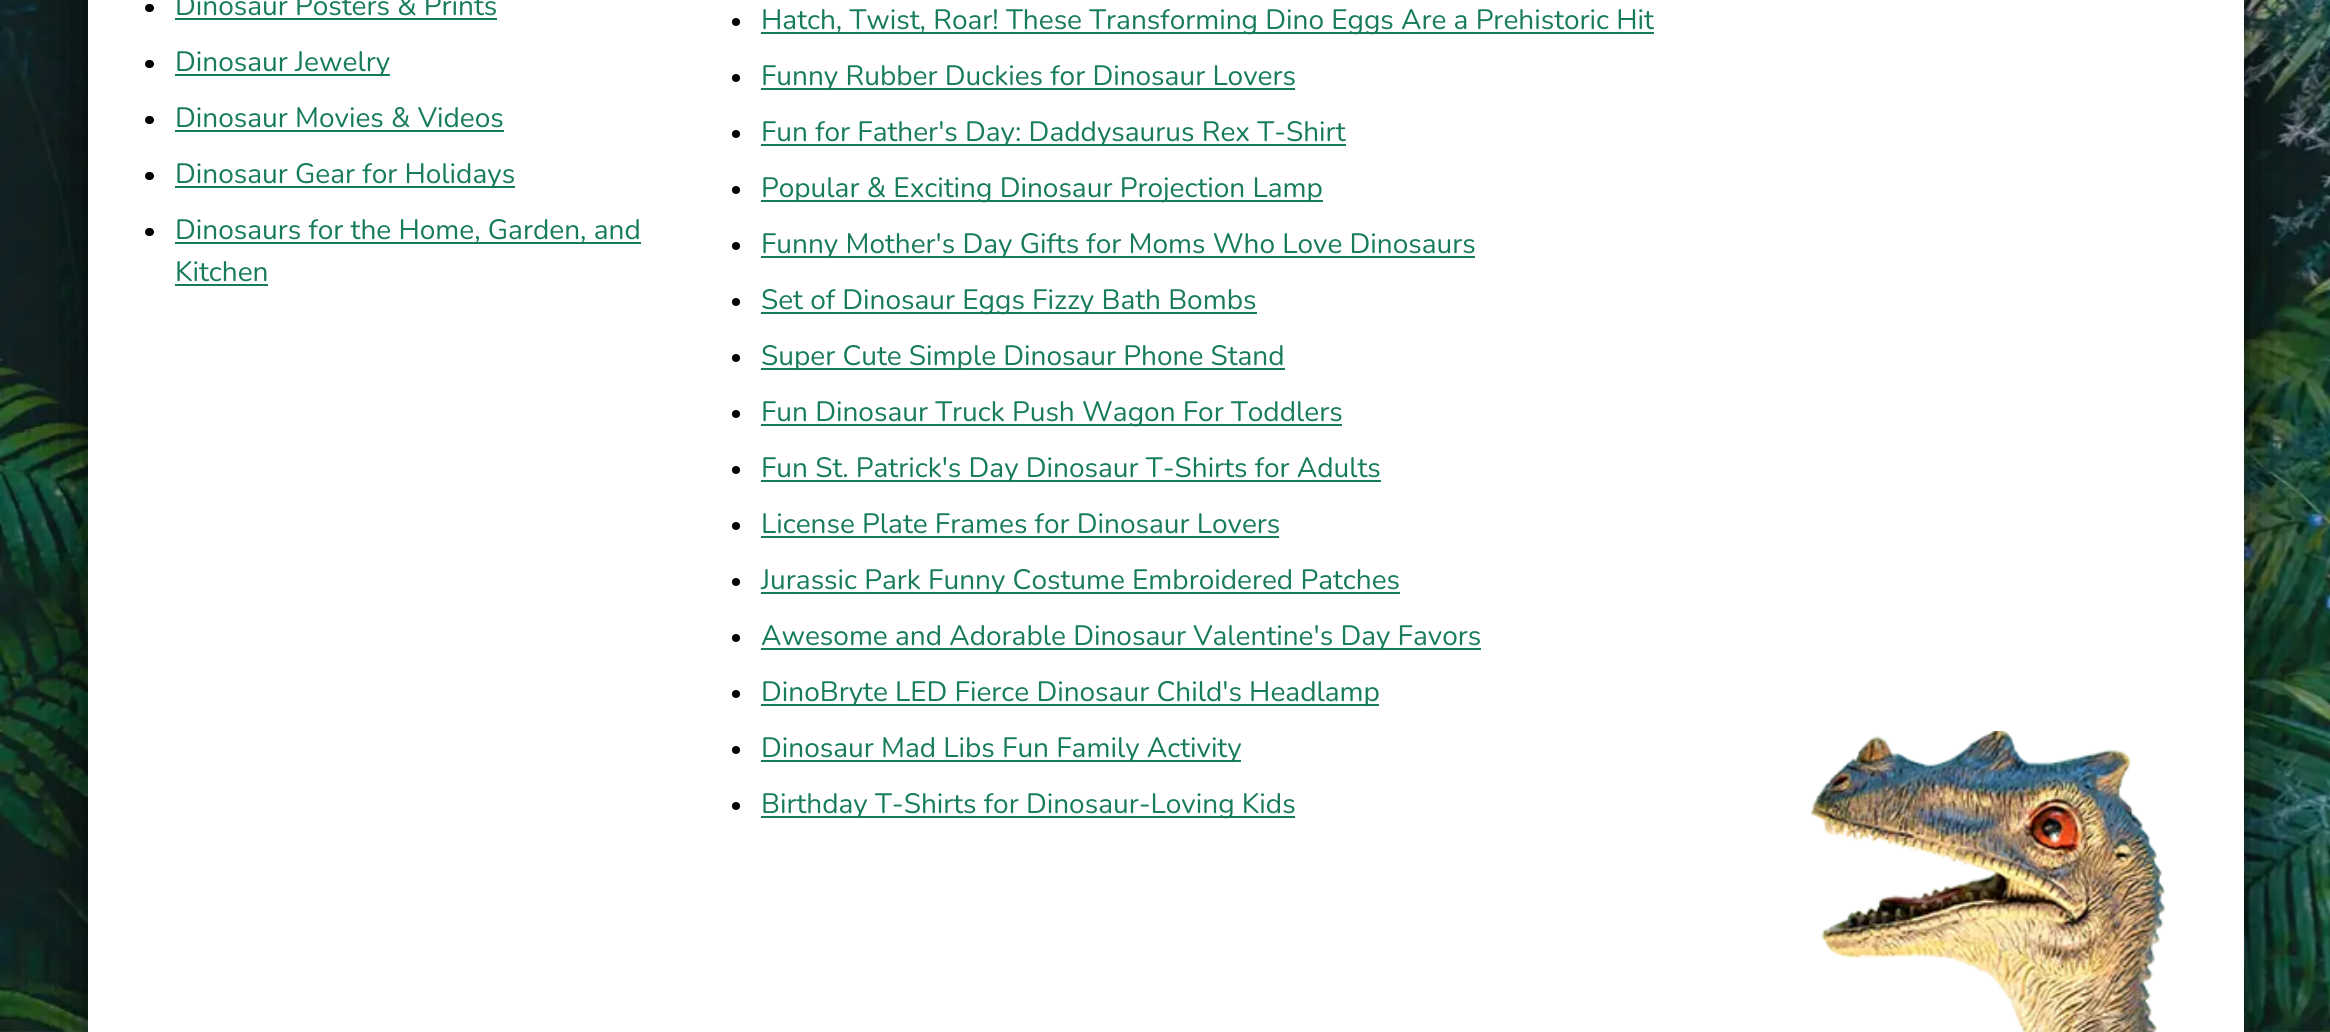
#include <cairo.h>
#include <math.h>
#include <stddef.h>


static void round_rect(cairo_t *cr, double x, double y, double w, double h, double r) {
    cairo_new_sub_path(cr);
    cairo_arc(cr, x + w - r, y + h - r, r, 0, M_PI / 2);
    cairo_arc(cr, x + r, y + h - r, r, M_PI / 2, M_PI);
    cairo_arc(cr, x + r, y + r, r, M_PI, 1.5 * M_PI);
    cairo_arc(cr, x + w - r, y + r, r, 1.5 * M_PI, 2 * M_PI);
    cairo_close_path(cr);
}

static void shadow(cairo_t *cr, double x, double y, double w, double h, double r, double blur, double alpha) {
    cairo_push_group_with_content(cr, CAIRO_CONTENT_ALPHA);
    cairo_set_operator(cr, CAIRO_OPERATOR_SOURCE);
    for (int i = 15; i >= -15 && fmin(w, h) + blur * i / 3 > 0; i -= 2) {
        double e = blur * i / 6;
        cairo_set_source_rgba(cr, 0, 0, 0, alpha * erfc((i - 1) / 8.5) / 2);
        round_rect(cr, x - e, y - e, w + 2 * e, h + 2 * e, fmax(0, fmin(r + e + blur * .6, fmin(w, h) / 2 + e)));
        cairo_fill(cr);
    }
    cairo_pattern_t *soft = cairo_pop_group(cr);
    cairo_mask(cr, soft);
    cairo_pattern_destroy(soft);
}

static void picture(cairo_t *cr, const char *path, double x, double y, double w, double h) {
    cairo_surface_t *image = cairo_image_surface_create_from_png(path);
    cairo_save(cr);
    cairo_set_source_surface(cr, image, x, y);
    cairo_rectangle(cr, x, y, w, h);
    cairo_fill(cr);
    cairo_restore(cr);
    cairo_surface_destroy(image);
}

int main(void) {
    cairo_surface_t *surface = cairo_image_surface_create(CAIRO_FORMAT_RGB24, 2330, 1032);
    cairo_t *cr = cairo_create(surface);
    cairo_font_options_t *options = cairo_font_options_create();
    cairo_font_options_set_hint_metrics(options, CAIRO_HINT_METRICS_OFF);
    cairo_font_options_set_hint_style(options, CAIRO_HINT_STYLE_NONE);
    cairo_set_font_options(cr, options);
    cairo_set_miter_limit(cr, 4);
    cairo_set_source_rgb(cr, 1, 1, 1);
    cairo_paint(cr);
    picture(cr, "img1.png", 0, 0, 2330, 1032);
    cairo_set_source_rgb(cr, 0, 0, 0);
    shadow(cr, 88, -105, 2156, 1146, 0, 35, 0.85);
    cairo_set_source_rgb(cr, 1, 1, 1);
    cairo_rectangle(cr, 88, 0, 2156, 1032);
    cairo_fill(cr);
    cairo_set_source_rgb(cr, 0, 0, 0);
    round_rect(cr, 145, 4, 9, 8, 4);
    cairo_fill(cr);
    cairo_select_font_face(cr, "Nunito", CAIRO_FONT_SLANT_NORMAL, CAIRO_FONT_WEIGHT_NORMAL);
    cairo_set_font_size(cr, 28);
    cairo_set_source_rgb(cr, 0.09, 0.486, 0.345);
    cairo_move_to(cr, 175, 15);
    cairo_show_text(cr, "Dinosaur Posters & Prints");
    cairo_rectangle(cr, 175, 18, 322, 2);
    cairo_fill(cr);
    cairo_set_source_rgb(cr, 0, 0, 0);
    round_rect(cr, 145, 60, 9, 8, 4);
    cairo_fill(cr);
    cairo_set_source_rgb(cr, 0.09, 0.486, 0.345);
    cairo_rectangle(cr, 175, 74, 215, 2);
    cairo_fill(cr);
    cairo_move_to(cr, 175, 71);
    cairo_show_text(cr, "Dinosaur Jewelry");
    cairo_set_source_rgb(cr, 0, 0, 0);
    round_rect(cr, 145, 116, 9, 8, 4);
    cairo_fill(cr);
    cairo_set_source_rgb(cr, 0.09, 0.486, 0.345);
    cairo_move_to(cr, 175, 127);
    cairo_show_text(cr, "Dinosaur Movies & Videos");
    cairo_rectangle(cr, 175, 130, 329, 2);
    cairo_fill(cr);
    cairo_set_source_rgb(cr, 0, 0, 0);
    round_rect(cr, 145, 172, 9, 8, 4);
    cairo_fill(cr);
    cairo_set_source_rgb(cr, 0.09, 0.486, 0.345);
    cairo_rectangle(cr, 175, 186, 340, 2);
    cairo_fill(cr);
    cairo_move_to(cr, 175, 183);
    cairo_show_text(cr, "Dinosaur Gear for Holidays");
    cairo_set_source_rgb(cr, 0, 0, 0);
    round_rect(cr, 145, 228, 9, 8, 4);
    cairo_fill(cr);
    cairo_set_source_rgb(cr, 0.09, 0.486, 0.345);
    cairo_rectangle(cr, 175, 242, 466, 2);
    cairo_fill(cr);
    cairo_move_to(cr, 175, 239);
    cairo_show_text(cr, "Dinosaurs for the Home, Garden, and");
    cairo_move_to(cr, 175, 281);
    cairo_show_text(cr, "Kitchen");
    cairo_rectangle(cr, 175, 284, 93, 2);
    cairo_fill(cr);
    cairo_set_source_rgb(cr, 0, 0, 0);
    cairo_arc(cr, 736, 22, 4, 0, 2 * M_PI);
    cairo_fill(cr);
    cairo_set_source_rgb(cr, 0.09, 0.486, 0.345);
    cairo_rectangle(cr, 761, 32, 893, 2);
    cairo_fill(cr);
    cairo_move_to(cr, 761, 29);
    cairo_show_text(cr, "Hatch, Twist, Roar! These Transforming Dino Eggs Are a Prehistoric Hit");
    cairo_set_source_rgb(cr, 0, 0, 0);
    cairo_new_path(cr);
    cairo_arc(cr, 736, 78, 4, 0, 2 * M_PI);
    cairo_fill(cr);
    cairo_set_source_rgb(cr, 0.09, 0.486, 0.345);
    cairo_rectangle(cr, 761, 88, 534, 2);
    cairo_fill(cr);
    cairo_move_to(cr, 761, 85);
    cairo_show_text(cr, "Funny Rubber Duckies for Dinosaur Lovers");
    cairo_set_source_rgb(cr, 0, 0, 0);
    cairo_new_path(cr);
    cairo_arc(cr, 736, 134, 4, 0, 2 * M_PI);
    cairo_fill(cr);
    cairo_set_source_rgb(cr, 0.09, 0.486, 0.345);
    cairo_rectangle(cr, 761, 144, 585, 2);
    cairo_fill(cr);
    cairo_move_to(cr, 761, 141);
    cairo_show_text(cr, "Fun for Father's Day: Daddysaurus Rex T-Shirt");
    cairo_set_source_rgb(cr, 0, 0, 0);
    cairo_new_path(cr);
    cairo_arc(cr, 736, 190, 4, 0, 2 * M_PI);
    cairo_fill(cr);
    cairo_set_source_rgb(cr, 0.09, 0.486, 0.345);
    cairo_rectangle(cr, 761, 200, 562, 2);
    cairo_fill(cr);
    cairo_move_to(cr, 761, 197);
    cairo_show_text(cr, "Popular & Exciting Dinosaur Projection Lamp");
    cairo_set_source_rgb(cr, 0, 0, 0);
    cairo_new_path(cr);
    cairo_arc(cr, 736, 246, 4, 0, 2 * M_PI);
    cairo_fill(cr);
    cairo_set_source_rgb(cr, 0.09, 0.486, 0.345);
    cairo_rectangle(cr, 761, 256, 714, 2);
    cairo_fill(cr);
    cairo_move_to(cr, 761, 253);
    cairo_show_text(cr, "Funny Mother's Day Gifts for Moms Who Love Dinosaurs");
    cairo_set_source_rgb(cr, 0, 0, 0);
    cairo_new_path(cr);
    cairo_arc(cr, 736, 302, 4, 0, 2 * M_PI);
    cairo_fill(cr);
    cairo_set_source_rgb(cr, 0.09, 0.486, 0.345);
    cairo_rectangle(cr, 761, 312, 496, 2);
    cairo_fill(cr);
    cairo_move_to(cr, 761, 309);
    cairo_show_text(cr, "Set of Dinosaur Eggs Fizzy Bath Bombs");
    cairo_set_source_rgb(cr, 0, 0, 0);
    cairo_new_path(cr);
    cairo_arc(cr, 736, 358, 4, 0, 2 * M_PI);
    cairo_fill(cr);
    cairo_set_source_rgb(cr, 0.09, 0.486, 0.345);
    cairo_rectangle(cr, 761, 368, 524, 2);
    cairo_fill(cr);
    cairo_move_to(cr, 761, 365);
    cairo_show_text(cr, "Super Cute Simple Dinosaur Phone Stand");
    cairo_set_source_rgb(cr, 0, 0, 0);
    cairo_new_path(cr);
    cairo_arc(cr, 736, 414, 4, 0, 2 * M_PI);
    cairo_fill(cr);
    cairo_set_source_rgb(cr, 0.09, 0.486, 0.345);
    cairo_rectangle(cr, 761, 424, 581, 2);
    cairo_fill(cr);
    cairo_move_to(cr, 761, 421);
    cairo_show_text(cr, "Fun Dinosaur Truck Push Wagon For Toddlers");
    cairo_set_source_rgb(cr, 0, 0, 0);
    cairo_new_path(cr);
    cairo_arc(cr, 736, 470, 4, 0, 2 * M_PI);
    cairo_fill(cr);
    cairo_set_source_rgb(cr, 0.09, 0.486, 0.345);
    cairo_rectangle(cr, 761, 480, 620, 2);
    cairo_fill(cr);
    cairo_move_to(cr, 761, 477);
    cairo_show_text(cr, "Fun St. Patrick's Day Dinosaur T-Shirts for Adults");
    cairo_set_source_rgb(cr, 0, 0, 0);
    cairo_new_path(cr);
    cairo_arc(cr, 736, 526, 4, 0, 2 * M_PI);
    cairo_fill(cr);
    cairo_set_source_rgb(cr, 0.09, 0.486, 0.345);
    cairo_move_to(cr, 761, 533);
    cairo_show_text(cr, "License Plate Frames for Dinosaur Lovers");
    cairo_rectangle(cr, 761, 536, 518, 2);
    cairo_fill(cr);
    cairo_set_source_rgb(cr, 0, 0, 0);
    cairo_arc(cr, 736, 582, 4, 0, 2 * M_PI);
    cairo_fill(cr);
    cairo_set_source_rgb(cr, 0.09, 0.486, 0.345);
    cairo_rectangle(cr, 761, 592, 639, 2);
    cairo_fill(cr);
    cairo_move_to(cr, 761, 589);
    cairo_show_text(cr, "Jurassic Park Funny Costume Embroidered Patches");
    cairo_set_source_rgb(cr, 0, 0, 0);
    cairo_new_path(cr);
    cairo_arc(cr, 736, 638, 4, 0, 2 * M_PI);
    cairo_fill(cr);
    cairo_set_source_rgb(cr, 0.09, 0.486, 0.345);
    cairo_rectangle(cr, 761, 648, 720, 2);
    cairo_fill(cr);
    cairo_move_to(cr, 761, 645);
    cairo_show_text(cr, "Awesome and Adorable Dinosaur Valentine's Day Favors");
    cairo_set_source_rgb(cr, 0, 0, 0);
    cairo_new_path(cr);
    cairo_arc(cr, 736, 694, 4, 0, 2 * M_PI);
    cairo_fill(cr);
    cairo_set_source_rgb(cr, 0.09, 0.486, 0.345);
    cairo_rectangle(cr, 761, 704, 618, 2);
    cairo_fill(cr);
    cairo_move_to(cr, 761, 701);
    cairo_show_text(cr, "DinoBryte LED Fierce Dinosaur Child's Headlamp");
    cairo_set_source_rgb(cr, 0, 0, 0);
    cairo_new_path(cr);
    cairo_arc(cr, 736, 750, 4, 0, 2 * M_PI);
    cairo_fill(cr);
    cairo_set_source_rgb(cr, 0.09, 0.486, 0.345);
    cairo_rectangle(cr, 761, 760, 480, 2);
    cairo_fill(cr);
    cairo_move_to(cr, 761, 757);
    cairo_show_text(cr, "Dinosaur Mad Libs Fun Family Activity");
    cairo_set_source_rgb(cr, 0, 0, 0);
    cairo_new_path(cr);
    cairo_arc(cr, 736, 806, 4, 0, 2 * M_PI);
    cairo_fill(cr);
    cairo_set_source_rgb(cr, 0.09, 0.486, 0.345);
    cairo_rectangle(cr, 761, 816, 534, 2);
    cairo_fill(cr);
    cairo_move_to(cr, 761, 813);
    cairo_show_text(cr, "Birthday T-Shirts for Dinosaur-Loving Kids");
    picture(cr, "img2.png", 1811, 731, 354, 301);
    cairo_surface_write_to_png(surface, "page.png");
    cairo_font_options_destroy(options);
    cairo_destroy(cr);
    cairo_surface_destroy(surface);
    return 0;
}
